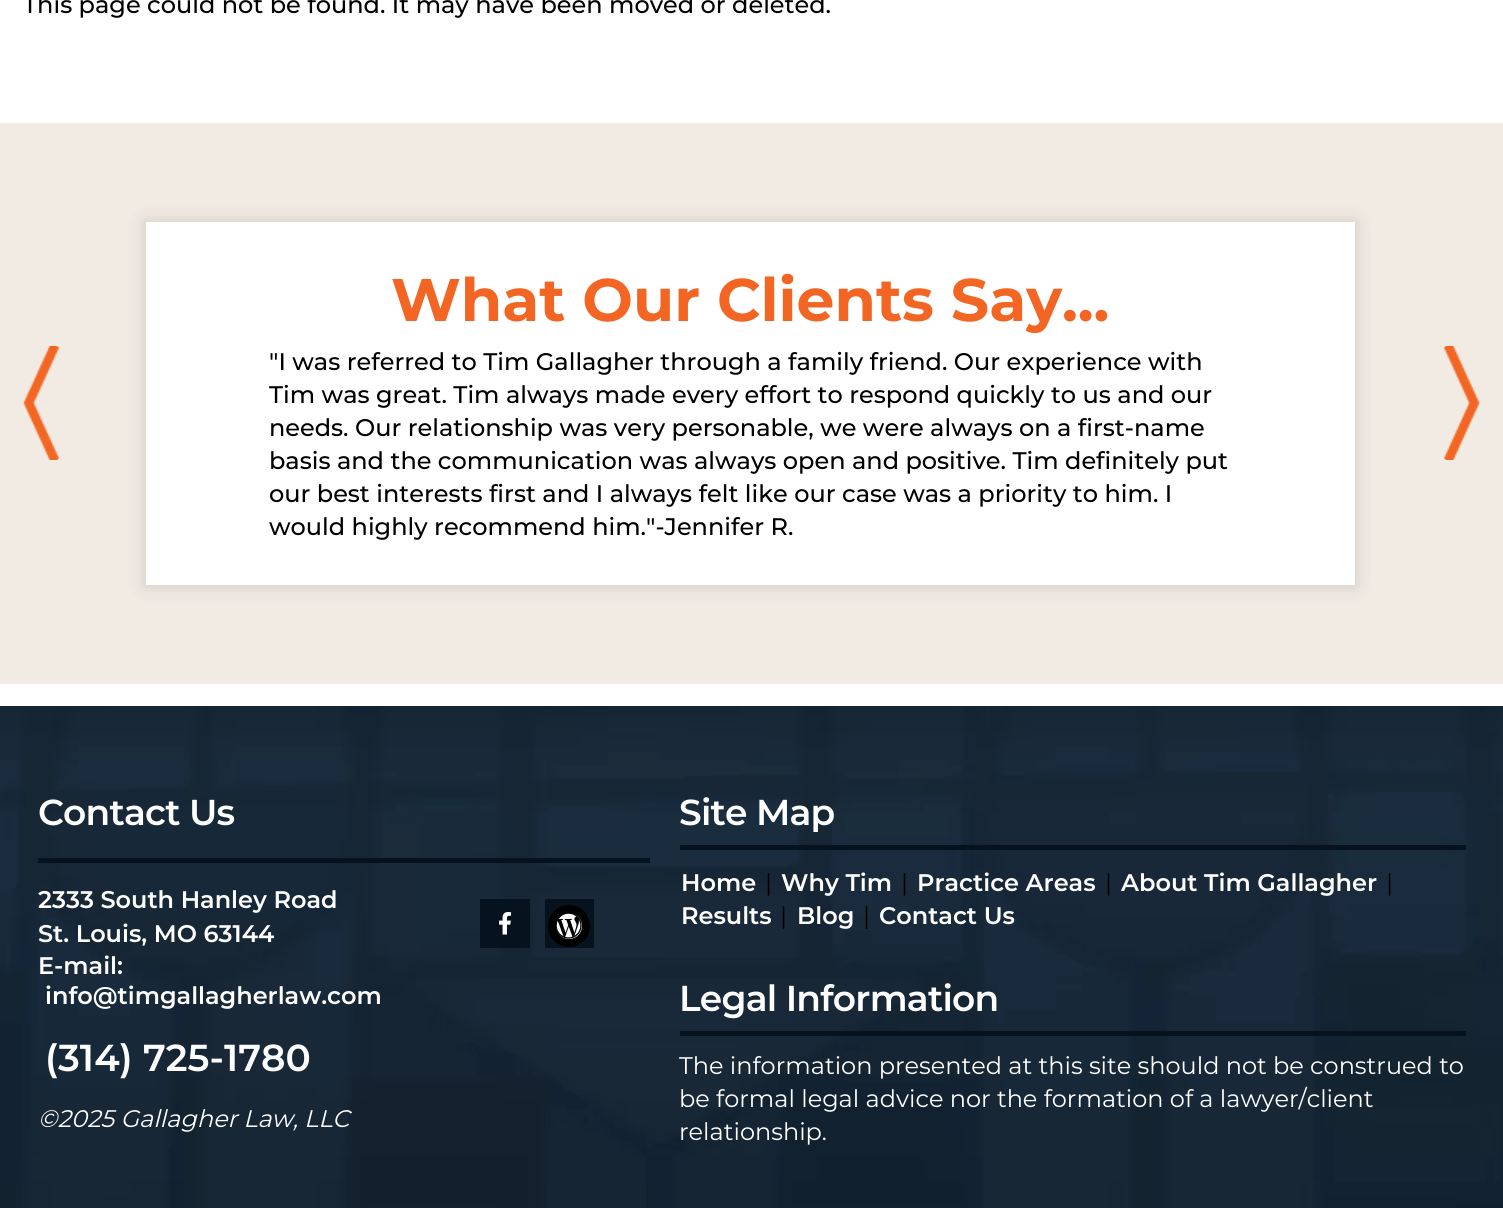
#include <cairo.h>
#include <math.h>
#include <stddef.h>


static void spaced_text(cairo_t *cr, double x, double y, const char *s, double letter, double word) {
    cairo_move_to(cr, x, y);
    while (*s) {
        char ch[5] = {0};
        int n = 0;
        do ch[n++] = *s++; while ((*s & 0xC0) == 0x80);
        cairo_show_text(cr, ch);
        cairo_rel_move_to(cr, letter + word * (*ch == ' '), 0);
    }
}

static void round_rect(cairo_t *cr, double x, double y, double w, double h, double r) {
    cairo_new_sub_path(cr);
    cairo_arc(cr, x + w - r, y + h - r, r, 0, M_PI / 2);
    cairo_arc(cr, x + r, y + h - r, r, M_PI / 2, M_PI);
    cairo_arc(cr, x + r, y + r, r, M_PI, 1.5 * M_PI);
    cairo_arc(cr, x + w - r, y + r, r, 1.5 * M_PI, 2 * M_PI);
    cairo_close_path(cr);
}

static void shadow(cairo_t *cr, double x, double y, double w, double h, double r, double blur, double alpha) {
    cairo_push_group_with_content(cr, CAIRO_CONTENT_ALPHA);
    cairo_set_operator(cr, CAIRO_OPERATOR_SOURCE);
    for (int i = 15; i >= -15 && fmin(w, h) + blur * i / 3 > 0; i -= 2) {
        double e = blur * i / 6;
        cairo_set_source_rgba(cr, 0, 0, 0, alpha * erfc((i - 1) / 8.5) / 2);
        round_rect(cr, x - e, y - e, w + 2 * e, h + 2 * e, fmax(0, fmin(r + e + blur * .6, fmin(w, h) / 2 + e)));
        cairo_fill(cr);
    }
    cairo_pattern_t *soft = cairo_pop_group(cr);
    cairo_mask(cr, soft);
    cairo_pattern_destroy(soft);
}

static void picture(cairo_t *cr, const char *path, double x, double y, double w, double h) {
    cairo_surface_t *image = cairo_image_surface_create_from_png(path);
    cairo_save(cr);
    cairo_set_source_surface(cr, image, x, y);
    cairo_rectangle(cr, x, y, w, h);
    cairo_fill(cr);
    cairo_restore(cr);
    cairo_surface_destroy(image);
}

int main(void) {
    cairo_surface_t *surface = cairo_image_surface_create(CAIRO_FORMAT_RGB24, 1503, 1208);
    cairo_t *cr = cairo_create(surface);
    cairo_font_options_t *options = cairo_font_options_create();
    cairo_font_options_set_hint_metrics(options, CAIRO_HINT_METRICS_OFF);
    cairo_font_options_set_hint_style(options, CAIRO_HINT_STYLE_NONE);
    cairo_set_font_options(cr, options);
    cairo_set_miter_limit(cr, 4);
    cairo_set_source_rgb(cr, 1, 1, 1);
    cairo_paint(cr);
    cairo_select_font_face(cr, "Montserrat Medium", CAIRO_FONT_SLANT_NORMAL, CAIRO_FONT_WEIGHT_NORMAL);
    cairo_set_font_size(cr, 24);
    cairo_set_source_rgb(cr, 0, 0, 0);
    cairo_move_to(cr, 23, 13);
    cairo_show_text(cr, "This page could not be found. It may have been moved or deleted.");
    cairo_set_source_rgb(cr, 0.945, 0.918, 0.894);
    cairo_rectangle(cr, 0, 123, 1503, 561);
    cairo_fill(cr);
    cairo_set_source_rgb(cr, 0, 0, 0);
    shadow(cr, 144, 221, 1212, 366, 0, 9, 0.13);
    cairo_set_source_rgb(cr, 1, 1, 1);
    cairo_rectangle(cr, 146, 222, 1209, 363);
    cairo_fill(cr);
    cairo_select_font_face(cr, "Montserrat", CAIRO_FONT_SLANT_NORMAL, CAIRO_FONT_WEIGHT_BOLD);
    cairo_set_font_size(cr, 60);
    cairo_set_source_rgb(cr, 0.953, 0.396, 0.137);
    cairo_move_to(cr, 391, 321);
    cairo_show_text(cr, "What Our Clients Say...");
    cairo_select_font_face(cr, "Montserrat Medium", CAIRO_FONT_SLANT_NORMAL, CAIRO_FONT_WEIGHT_NORMAL);
    cairo_set_font_size(cr, 24);
    cairo_set_source_rgb(cr, 0, 0, 0);
    cairo_move_to(cr, 269, 370);
    cairo_show_text(cr, "\"I was referred to Tim Gallagher through a family friend. Our experience with");
    cairo_move_to(cr, 269, 403);
    cairo_show_text(cr, "Tim was great. Tim always made every effort to respond quickly to us and our");
    cairo_move_to(cr, 269, 436);
    cairo_show_text(cr, "needs. Our relationship was very personable, we were always on a first-name");
    cairo_move_to(cr, 269, 469);
    cairo_show_text(cr, "basis and the communication was always open and positive. Tim definitely put");
    cairo_move_to(cr, 269, 502);
    cairo_show_text(cr, "our best interests first and I always felt like our case was a priority to him. I");
    cairo_move_to(cr, 269, 535);
    cairo_show_text(cr, "would highly recommend him.\"-Jennifer R.");
    picture(cr, "img1.png", 23, 346, 37, 114);
    picture(cr, "img2.png", 1443, 346, 37, 114);
    picture(cr, "img3.png", 0, 706, 1503, 502);
    cairo_set_source_rgb(cr, 0.027, 0.071, 0.118);
    cairo_rectangle(cr, 38, 858, 612, 5);
    cairo_fill(cr);
    cairo_select_font_face(cr, "Montserrat SemiBold", CAIRO_FONT_SLANT_NORMAL, CAIRO_FONT_WEIGHT_NORMAL);
    cairo_set_font_size(cr, 36);
    cairo_set_source_rgb(cr, 1, 1, 1);
    spaced_text(cr, 38, 825, "Contact Us", -0.75, 0);
    cairo_set_font_size(cr, 24);
    cairo_move_to(cr, 38, 908);
    cairo_show_text(cr, "2333 South Hanley Road");
    cairo_move_to(cr, 38, 942);
    cairo_show_text(cr, "St. Louis, MO 63144");
    cairo_move_to(cr, 38, 974);
    cairo_show_text(cr, "E-mail:");
    cairo_move_to(cr, 45, 1004);
    cairo_show_text(cr, "info@timgallagherlaw.com");
    cairo_set_font_size(cr, 37.5);
    cairo_move_to(cr, 45, 1071);
    cairo_show_text(cr, "(314) 725-1780");
    cairo_select_font_face(cr, "Montserrat", CAIRO_FONT_SLANT_ITALIC, CAIRO_FONT_WEIGHT_NORMAL);
    cairo_set_font_size(cr, 24);
    cairo_move_to(cr, 38, 1127);
    cairo_show_text(cr, "©2025 Gallagher Law, LLC");
    cairo_set_source_rgb(cr, 0.027, 0.071, 0.118);
    cairo_rectangle(cr, 480, 899, 50, 49);
    cairo_fill(cr);
    picture(cr, "img4.png", 499, 912, 13, 23);
    cairo_rectangle(cr, 545, 899, 49, 49);
    cairo_fill(cr);
    cairo_set_source_rgb(cr, 1, 1, 1);
    cairo_arc(cr, 569, 926, 17, 0, 2 * M_PI);
    cairo_fill_preserve(cr);
    cairo_set_source_rgb(cr, 0, 0, 0);
    cairo_set_line_width(cr, 8);
    cairo_stroke(cr);
    picture(cr, "img5.png", 556, 913, 26, 26);
    cairo_set_source_rgb(cr, 0.027, 0.071, 0.118);
    cairo_rectangle(cr, 680, 845, 786, 5);
    cairo_fill(cr);
    cairo_select_font_face(cr, "Montserrat SemiBold", CAIRO_FONT_SLANT_NORMAL, CAIRO_FONT_WEIGHT_NORMAL);
    cairo_set_font_size(cr, 36);
    cairo_set_source_rgb(cr, 1, 1, 1);
    spaced_text(cr, 679, 825, "Site Map", -0.75, 0);
    cairo_set_font_size(cr, 24);
    cairo_move_to(cr, 681, 891);
    cairo_show_text(cr, "Home");
    cairo_select_font_face(cr, "Montserrat", CAIRO_FONT_SLANT_NORMAL, CAIRO_FONT_WEIGHT_NORMAL);
    cairo_set_source_rgb(cr, 0, 0, 0);
    cairo_move_to(cr, 765, 891);
    cairo_show_text(cr, "|");
    cairo_select_font_face(cr, "Montserrat SemiBold", CAIRO_FONT_SLANT_NORMAL, CAIRO_FONT_WEIGHT_NORMAL);
    cairo_set_source_rgb(cr, 1, 1, 1);
    cairo_move_to(cr, 781, 891);
    cairo_show_text(cr, "Why Tim");
    cairo_select_font_face(cr, "Montserrat", CAIRO_FONT_SLANT_NORMAL, CAIRO_FONT_WEIGHT_NORMAL);
    cairo_set_source_rgb(cr, 0, 0, 0);
    cairo_move_to(cr, 901, 891);
    cairo_show_text(cr, "|");
    cairo_select_font_face(cr, "Montserrat SemiBold", CAIRO_FONT_SLANT_NORMAL, CAIRO_FONT_WEIGHT_NORMAL);
    cairo_set_source_rgb(cr, 1, 1, 1);
    cairo_move_to(cr, 917, 891);
    cairo_show_text(cr, "Practice Areas");
    cairo_select_font_face(cr, "Montserrat", CAIRO_FONT_SLANT_NORMAL, CAIRO_FONT_WEIGHT_NORMAL);
    cairo_set_source_rgb(cr, 0, 0, 0);
    cairo_move_to(cr, 1105, 891);
    cairo_show_text(cr, "|");
    cairo_select_font_face(cr, "Montserrat SemiBold", CAIRO_FONT_SLANT_NORMAL, CAIRO_FONT_WEIGHT_NORMAL);
    cairo_set_source_rgb(cr, 1, 1, 1);
    cairo_move_to(cr, 1121, 891);
    cairo_show_text(cr, "About Tim Gallagher");
    cairo_select_font_face(cr, "Montserrat", CAIRO_FONT_SLANT_NORMAL, CAIRO_FONT_WEIGHT_NORMAL);
    cairo_set_source_rgb(cr, 0, 0, 0);
    cairo_move_to(cr, 1386, 891);
    cairo_show_text(cr, "|");
    cairo_select_font_face(cr, "Montserrat SemiBold", CAIRO_FONT_SLANT_NORMAL, CAIRO_FONT_WEIGHT_NORMAL);
    cairo_set_source_rgb(cr, 1, 1, 1);
    cairo_move_to(cr, 681, 924);
    cairo_show_text(cr, "Results");
    cairo_select_font_face(cr, "Montserrat", CAIRO_FONT_SLANT_NORMAL, CAIRO_FONT_WEIGHT_NORMAL);
    cairo_set_source_rgb(cr, 0, 0, 0);
    cairo_move_to(cr, 780, 924);
    cairo_show_text(cr, "|");
    cairo_select_font_face(cr, "Montserrat SemiBold", CAIRO_FONT_SLANT_NORMAL, CAIRO_FONT_WEIGHT_NORMAL);
    cairo_set_source_rgb(cr, 1, 1, 1);
    cairo_move_to(cr, 797, 924);
    cairo_show_text(cr, "Blog");
    cairo_select_font_face(cr, "Montserrat", CAIRO_FONT_SLANT_NORMAL, CAIRO_FONT_WEIGHT_NORMAL);
    cairo_set_source_rgb(cr, 0, 0, 0);
    cairo_move_to(cr, 863, 924);
    cairo_show_text(cr, "|");
    cairo_select_font_face(cr, "Montserrat SemiBold", CAIRO_FONT_SLANT_NORMAL, CAIRO_FONT_WEIGHT_NORMAL);
    cairo_set_source_rgb(cr, 1, 1, 1);
    cairo_move_to(cr, 879, 924);
    cairo_show_text(cr, "Contact Us");
    cairo_set_source_rgb(cr, 0.027, 0.071, 0.118);
    cairo_rectangle(cr, 680, 1031, 786, 5);
    cairo_fill(cr);
    cairo_set_font_size(cr, 36);
    cairo_set_source_rgb(cr, 1, 1, 1);
    spaced_text(cr, 679, 1011, "Legal Information", -0.75, 0);
    cairo_select_font_face(cr, "Montserrat", CAIRO_FONT_SLANT_NORMAL, CAIRO_FONT_WEIGHT_NORMAL);
    cairo_set_font_size(cr, 24);
    cairo_move_to(cr, 679, 1074);
    cairo_show_text(cr, "The information presented at this site should not be construed to");
    cairo_move_to(cr, 679, 1107);
    cairo_show_text(cr, "be formal legal advice nor the formation of a lawyer/client");
    cairo_move_to(cr, 679, 1140);
    cairo_show_text(cr, "relationship.");
    cairo_surface_write_to_png(surface, "page.png");
    cairo_font_options_destroy(options);
    cairo_destroy(cr);
    cairo_surface_destroy(surface);
    return 0;
}
